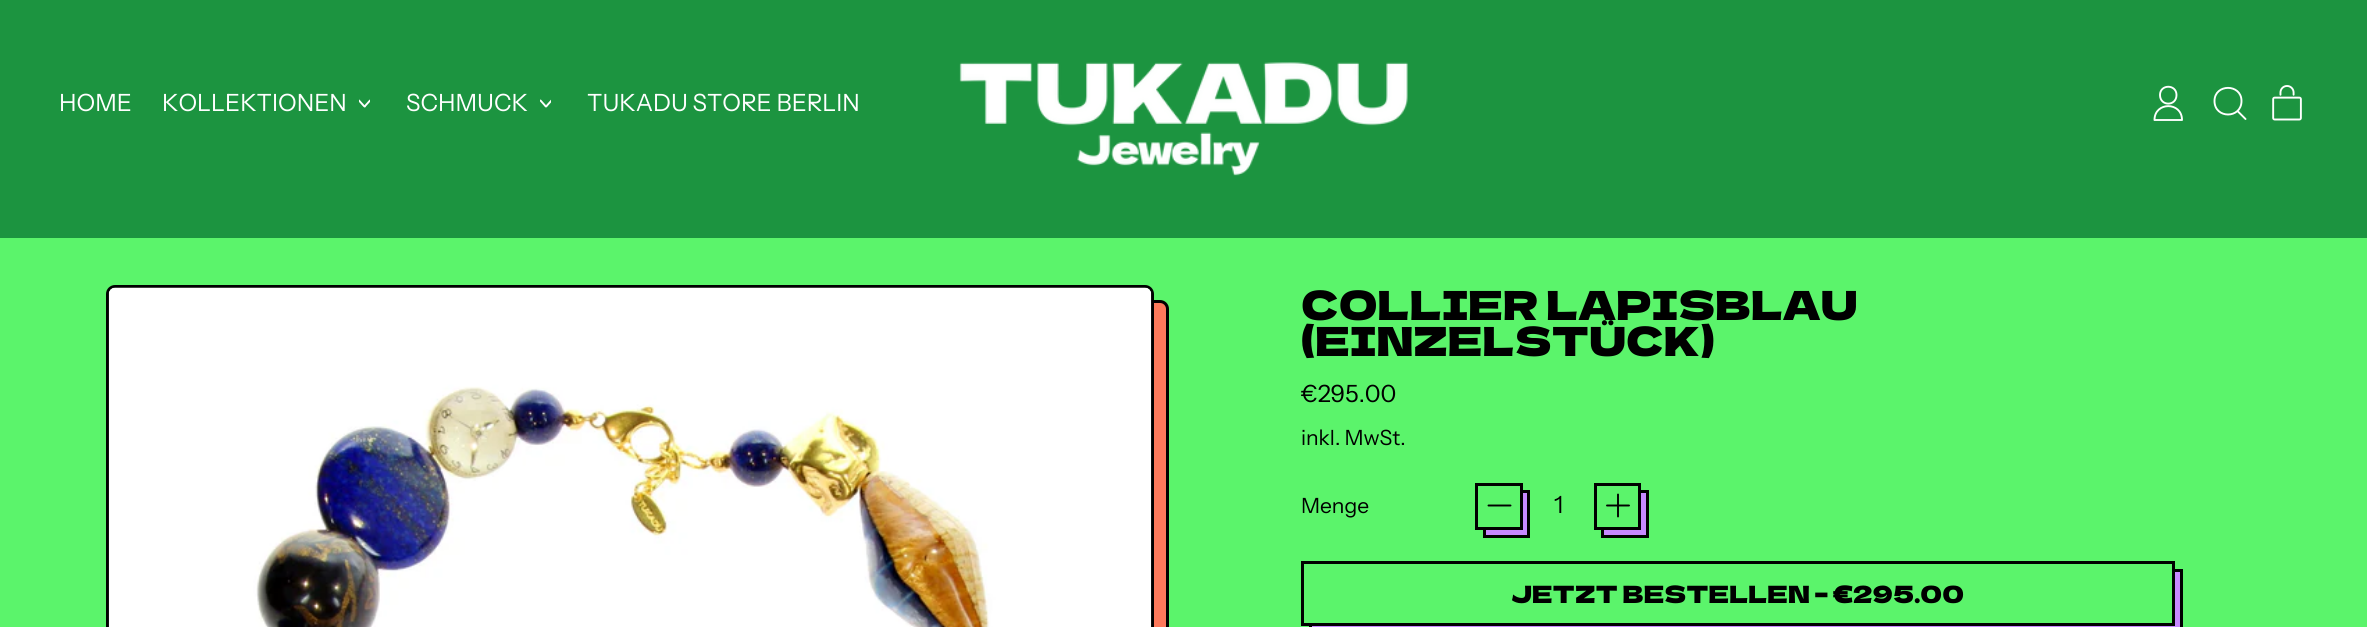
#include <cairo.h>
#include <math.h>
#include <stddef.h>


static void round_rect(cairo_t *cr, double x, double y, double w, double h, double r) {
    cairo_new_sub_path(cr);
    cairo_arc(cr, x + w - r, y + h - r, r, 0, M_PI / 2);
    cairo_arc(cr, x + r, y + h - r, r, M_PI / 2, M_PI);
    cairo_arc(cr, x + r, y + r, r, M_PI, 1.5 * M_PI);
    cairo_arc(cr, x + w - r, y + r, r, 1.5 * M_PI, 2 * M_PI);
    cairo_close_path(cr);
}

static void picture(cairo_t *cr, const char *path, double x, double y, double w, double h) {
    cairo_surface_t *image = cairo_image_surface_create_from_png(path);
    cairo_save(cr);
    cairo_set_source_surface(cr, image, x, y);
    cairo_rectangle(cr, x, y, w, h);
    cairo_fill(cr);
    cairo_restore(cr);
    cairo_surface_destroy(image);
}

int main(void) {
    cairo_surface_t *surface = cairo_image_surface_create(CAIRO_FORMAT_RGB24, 2367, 627);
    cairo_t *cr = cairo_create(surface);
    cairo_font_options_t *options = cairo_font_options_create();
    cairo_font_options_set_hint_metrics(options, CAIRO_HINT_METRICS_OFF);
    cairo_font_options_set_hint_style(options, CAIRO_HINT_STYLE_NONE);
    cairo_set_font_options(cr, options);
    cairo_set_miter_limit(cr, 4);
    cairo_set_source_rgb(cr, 0.11, 0.58, 0.251);
    cairo_paint(cr);
    cairo_select_font_face(cr, "Instrument Sans", CAIRO_FONT_SLANT_NORMAL, CAIRO_FONT_WEIGHT_NORMAL);
    cairo_set_font_size(cr, 23.75);
    cairo_set_source_rgb(cr, 1, 1, 1);
    cairo_move_to(cr, 59, 111);
    cairo_show_text(cr, "HOME");
    cairo_move_to(cr, 162, 111);
    cairo_show_text(cr, "KOLLEKTIONEN");
    cairo_save(cr);
    cairo_rectangle(cr, 359, 98, 11, 12);
    cairo_clip(cr);
    cairo_new_path(cr);
    cairo_move_to(cr, 359, 100.5);
    cairo_line_to(cr, 363.5, 105.5);
    cairo_curve_to(cr, 365, 107, 364.5, 107, 365.5, 105.5);
    cairo_line_to(cr, 370, 100.5);
    cairo_set_line_width(cr, 1.9);
    cairo_set_line_cap(cr, CAIRO_LINE_CAP_ROUND);
    cairo_set_line_join(cr, CAIRO_LINE_JOIN_ROUND);
    cairo_stroke(cr);
    cairo_restore(cr);
    cairo_move_to(cr, 406, 111);
    cairo_show_text(cr, "SCHMUCK");
    cairo_save(cr);
    cairo_rectangle(cr, 540, 98, 11, 12);
    cairo_clip(cr);
    cairo_new_path(cr);
    cairo_move_to(cr, 540.5, 100.5);
    cairo_line_to(cr, 545, 105.5);
    cairo_curve_to(cr, 546, 107, 546, 107, 547, 105.5);
    cairo_line_to(cr, 551.5, 100.5);
    cairo_set_line_width(cr, 1.9);
    cairo_set_line_cap(cr, CAIRO_LINE_CAP_ROUND);
    cairo_set_line_join(cr, CAIRO_LINE_JOIN_ROUND);
    cairo_stroke(cr);
    cairo_restore(cr);
    cairo_move_to(cr, 587, 111);
    cairo_show_text(cr, "TUKADU STORE BERLIN");
    picture(cr, "img1.png", 959, 62, 449, 114);
    cairo_new_path(cr);
    cairo_move_to(cr, 2160, 95);
    cairo_curve_to(cr, 2160, 106.5, 2176.5, 106.5, 2176.5, 95);
    cairo_curve_to(cr, 2176.5, 84, 2160, 84, 2160, 95);
    cairo_close_path(cr);
    cairo_move_to(cr, 2154.5, 120);
    cairo_curve_to(cr, 2154.5, 101.5, 2182, 101.5, 2182, 120);
    cairo_close_path(cr);
    cairo_set_line_width(cr, 1.9);
    cairo_set_line_cap(cr, CAIRO_LINE_CAP_ROUND);
    cairo_set_line_join(cr, CAIRO_LINE_JOIN_ROUND);
    cairo_stroke(cr);
    cairo_new_path(cr);
    cairo_move_to(cr, 2214.5, 101);
    cairo_curve_to(cr, 2214.5, 119, 2241.5, 119, 2241.5, 101);
    cairo_curve_to(cr, 2241.5, 83.5, 2214.5, 83.5, 2214.5, 101);
    cairo_close_path(cr);
    cairo_move_to(cr, 2245.5, 119);
    cairo_line_to(cr, 2237.5, 111);
    cairo_stroke(cr);
    picture(cr, "img2.png", 2272, 85, 30, 36);
    cairo_set_source_rgb(cr, 0.357, 0.957, 0.42);
    cairo_rectangle(cr, 0, 238, 2367, 389);
    cairo_fill(cr);
    cairo_set_source_rgb(cr, 0.992, 0.475, 0.357);
    round_rect(cr, 122.5, 301.5, 1045, 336, 7.5);
    cairo_fill_preserve(cr);
    cairo_set_source_rgb(cr, 0, 0, 0);
    cairo_set_line_width(cr, 3);
    cairo_set_line_cap(cr, CAIRO_LINE_CAP_BUTT);
    cairo_set_line_join(cr, CAIRO_LINE_JOIN_MITER);
    cairo_stroke(cr);
    round_rect(cr, 107.5, 286.5, 1045, 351, 7.5);
    cairo_stroke(cr);
    picture(cr, "img3.png", 108, 287, 1044, 340);
    cairo_select_font_face(cr, "Dela Gothic One", CAIRO_FONT_SLANT_NORMAL, CAIRO_FONT_WEIGHT_NORMAL);
    cairo_set_font_size(cr, 40);
    cairo_move_to(cr, 1301, 320);
    cairo_show_text(cr, "COLLIER LAPISBLAU");
    cairo_move_to(cr, 1301, 356);
    cairo_show_text(cr, "(EINZELSTÜCK)");
    cairo_select_font_face(cr, "Instrument Sans", CAIRO_FONT_SLANT_NORMAL, CAIRO_FONT_WEIGHT_NORMAL);
    cairo_set_font_size(cr, 23.75);
    cairo_move_to(cr, 1301, 402);
    cairo_show_text(cr, "€295.00");
    cairo_set_font_size(cr, 21);
    cairo_move_to(cr, 1301, 445);
    cairo_show_text(cr, "inkl. MwSt.");
    cairo_move_to(cr, 1301, 513);
    cairo_show_text(cr, "Menge");
    cairo_set_source_rgb(cr, 0.78, 0.537, 1);
    cairo_rectangle(cr, 1484.5, 491.5, 44, 45);
    cairo_fill_preserve(cr);
    cairo_set_source_rgb(cr, 0, 0, 0);
    cairo_stroke(cr);
    cairo_set_source_rgb(cr, 0.357, 0.957, 0.42);
    cairo_rectangle(cr, 1483, 490, 37, 37);
    cairo_fill(cr);
    cairo_rectangle(cr, 1476.5, 484.5, 45, 44);
    cairo_set_source_rgb(cr, 0, 0, 0);
    cairo_stroke(cr);
    cairo_new_path(cr);
    cairo_move_to(cr, 1510.5, 505.5);
    cairo_line_to(cr, 1488.5, 505.5);
    cairo_set_line_width(cr, 1.9);
    cairo_set_line_cap(cr, CAIRO_LINE_CAP_ROUND);
    cairo_set_line_join(cr, CAIRO_LINE_JOIN_ROUND);
    cairo_stroke(cr);
    cairo_set_font_size(cr, 23.75);
    cairo_move_to(cr, 1554, 513);
    cairo_show_text(cr, "1");
    cairo_set_source_rgb(cr, 0.78, 0.537, 1);
    cairo_rectangle(cr, 1602.5, 491.5, 45, 45);
    cairo_fill_preserve(cr);
    cairo_set_source_rgb(cr, 0, 0, 0);
    cairo_set_line_width(cr, 3);
    cairo_set_line_cap(cr, CAIRO_LINE_CAP_BUTT);
    cairo_set_line_join(cr, CAIRO_LINE_JOIN_MITER);
    cairo_stroke(cr);
    cairo_set_source_rgb(cr, 0.357, 0.957, 0.42);
    cairo_rectangle(cr, 1601, 490, 37, 37);
    cairo_fill(cr);
    cairo_rectangle(cr, 1595.5, 484.5, 44, 44);
    cairo_set_source_rgb(cr, 0, 0, 0);
    cairo_stroke(cr);
    cairo_new_path(cr);
    cairo_move_to(cr, 1618, 494.5);
    cairo_line_to(cr, 1618, 516.5);
    cairo_move_to(cr, 1629, 505.5);
    cairo_line_to(cr, 1607, 505.5);
    cairo_set_line_width(cr, 1.9);
    cairo_set_line_cap(cr, CAIRO_LINE_CAP_ROUND);
    cairo_set_line_join(cr, CAIRO_LINE_JOIN_ROUND);
    cairo_stroke(cr);
    cairo_set_source_rgb(cr, 0.78, 0.537, 1);
    cairo_rectangle(cr, 1310.5, 570.5, 871, 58);
    cairo_fill_preserve(cr);
    cairo_set_source_rgb(cr, 0, 0, 0);
    cairo_set_line_width(cr, 3);
    cairo_set_line_cap(cr, CAIRO_LINE_CAP_BUTT);
    cairo_set_line_join(cr, CAIRO_LINE_JOIN_MITER);
    cairo_stroke(cr);
    cairo_set_source_rgb(cr, 0.357, 0.957, 0.42);
    cairo_rectangle(cr, 1309, 569, 863, 54);
    cairo_fill(cr);
    cairo_rectangle(cr, 1302.5, 562.5, 871, 62);
    cairo_set_source_rgb(cr, 0, 0, 0);
    cairo_stroke(cr);
    cairo_select_font_face(cr, "Dela Gothic One", CAIRO_FONT_SLANT_NORMAL, CAIRO_FONT_WEIGHT_NORMAL);
    cairo_move_to(cr, 1511, 603);
    cairo_show_text(cr, "JETZT BESTELLEN – €295.00");
    cairo_surface_write_to_png(surface, "page.png");
    cairo_font_options_destroy(options);
    cairo_destroy(cr);
    cairo_surface_destroy(surface);
    return 0;
}
